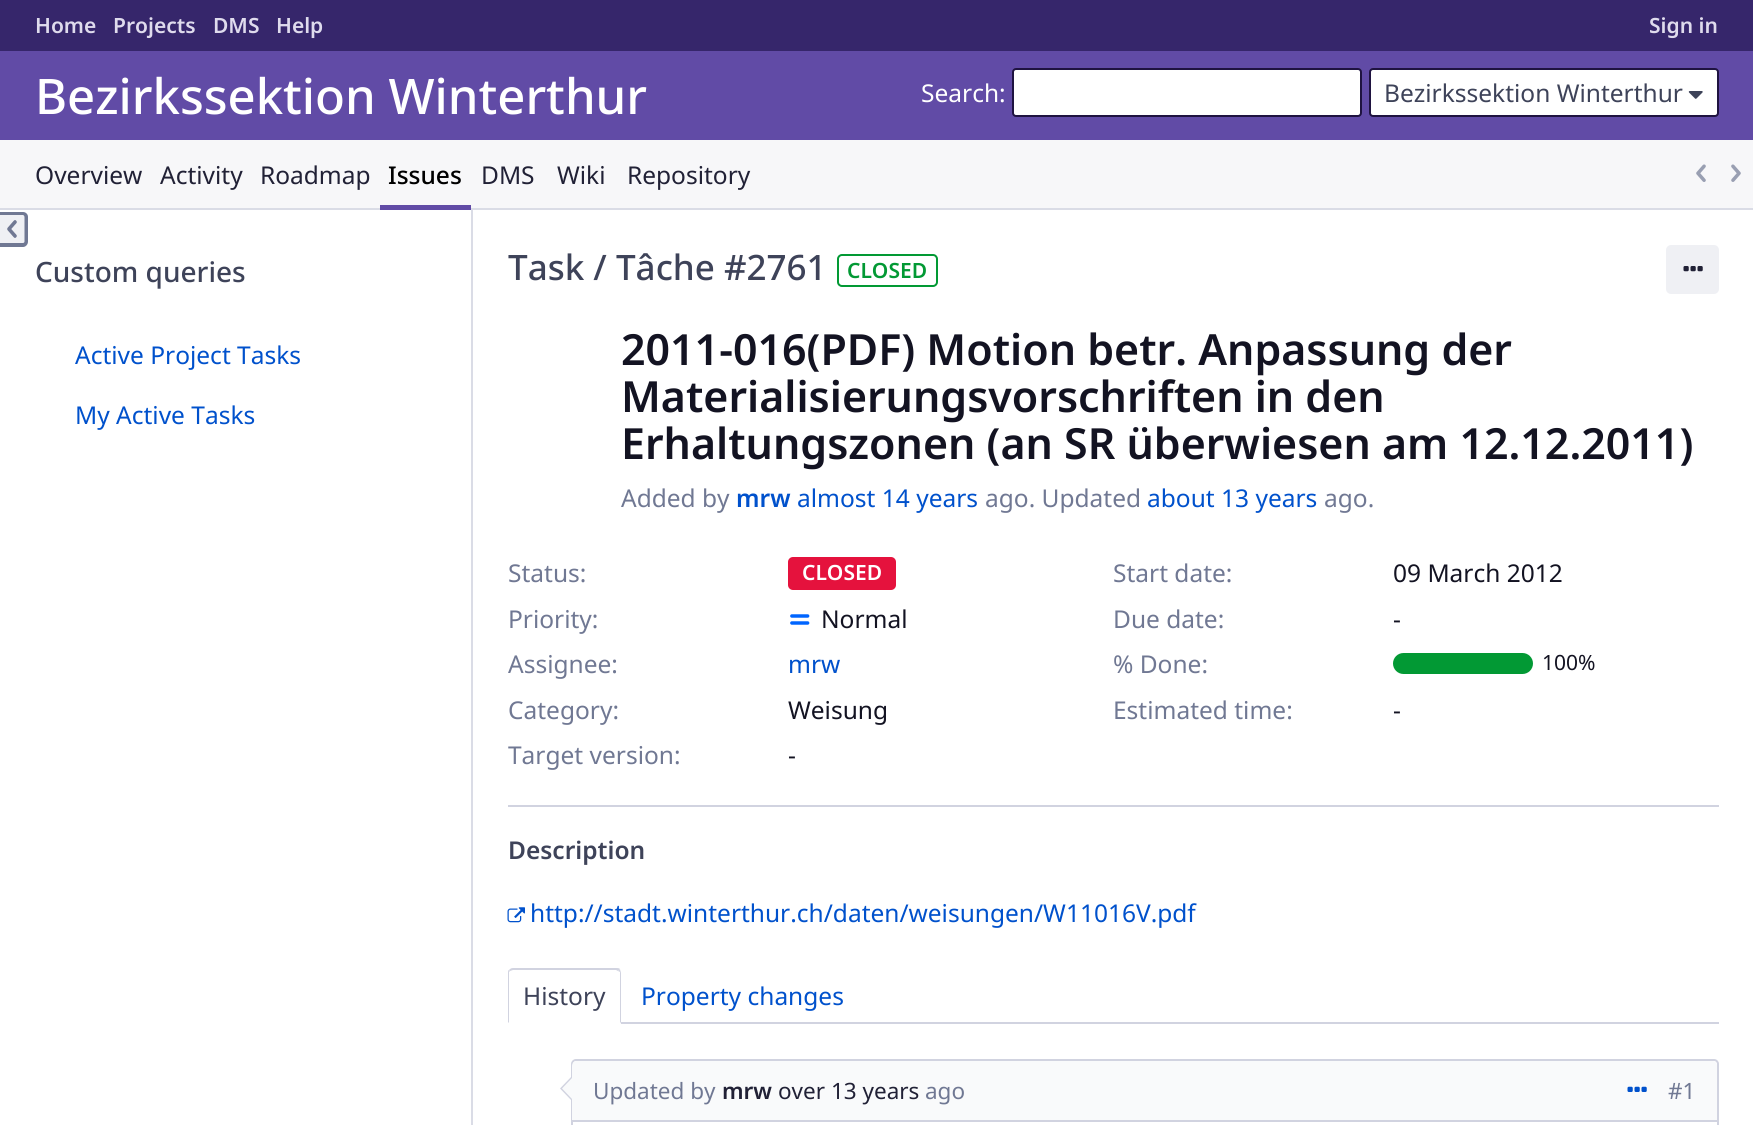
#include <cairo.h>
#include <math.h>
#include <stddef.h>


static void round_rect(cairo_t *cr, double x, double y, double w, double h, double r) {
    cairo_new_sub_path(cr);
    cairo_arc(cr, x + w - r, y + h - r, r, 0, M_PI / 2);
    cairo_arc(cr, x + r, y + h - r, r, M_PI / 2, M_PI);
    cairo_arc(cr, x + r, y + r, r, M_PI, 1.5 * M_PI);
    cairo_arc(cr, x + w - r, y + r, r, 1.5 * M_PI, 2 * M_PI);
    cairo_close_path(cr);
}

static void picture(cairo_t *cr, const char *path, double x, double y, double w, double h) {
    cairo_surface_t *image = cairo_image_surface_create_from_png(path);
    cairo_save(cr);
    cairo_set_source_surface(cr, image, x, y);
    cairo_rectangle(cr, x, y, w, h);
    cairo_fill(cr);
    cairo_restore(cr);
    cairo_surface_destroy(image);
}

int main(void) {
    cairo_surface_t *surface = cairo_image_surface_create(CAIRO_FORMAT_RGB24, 1753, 1125);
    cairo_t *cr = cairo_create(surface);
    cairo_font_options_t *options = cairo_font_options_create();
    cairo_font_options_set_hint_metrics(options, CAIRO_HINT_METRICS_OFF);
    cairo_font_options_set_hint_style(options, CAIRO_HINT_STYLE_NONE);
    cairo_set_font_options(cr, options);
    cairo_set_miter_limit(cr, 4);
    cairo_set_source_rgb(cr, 1, 1, 1);
    cairo_paint(cr);
    cairo_set_source_rgb(cr, 0.212, 0.149, 0.42);
    cairo_rectangle(cr, 0, 0, 1753, 51);
    cairo_fill(cr);
    cairo_select_font_face(cr, "Noto Sans SemiBold", CAIRO_FONT_SLANT_NORMAL, CAIRO_FONT_WEIGHT_NORMAL);
    cairo_set_font_size(cr, 21);
    cairo_set_source_rgb(cr, 0.875, 0.859, 0.929);
    cairo_move_to(cr, 35, 33);
    cairo_show_text(cr, "Home");
    cairo_move_to(cr, 113, 33);
    cairo_show_text(cr, "Projects");
    cairo_move_to(cr, 213, 33);
    cairo_show_text(cr, "DMS");
    cairo_move_to(cr, 276, 33);
    cairo_show_text(cr, "Help");
    cairo_move_to(cr, 1649, 33);
    cairo_show_text(cr, "Sign in");
    cairo_set_source_rgb(cr, 0.38, 0.294, 0.651);
    cairo_rectangle(cr, 0, 51, 1753, 89);
    cairo_fill(cr);
    cairo_select_font_face(cr, "Noto Sans Medium", CAIRO_FONT_SLANT_NORMAL, CAIRO_FONT_WEIGHT_NORMAL);
    cairo_set_font_size(cr, 49);
    cairo_set_source_rgb(cr, 1, 1, 1);
    cairo_move_to(cr, 35, 114);
    cairo_show_text(cr, "Bezirkssektion Winterthur");
    cairo_select_font_face(cr, "Noto Sans", CAIRO_FONT_SLANT_NORMAL, CAIRO_FONT_WEIGHT_NORMAL);
    cairo_set_font_size(cr, 24.5);
    cairo_move_to(cr, 921, 102);
    cairo_show_text(cr, "Search:");
    round_rect(cr, 1013, 69, 348, 47, 3);
    cairo_fill_preserve(cr);
    cairo_set_source_rgb(cr, 0.122, 0.078, 0.251);
    cairo_stroke(cr);
    cairo_set_source_rgb(cr, 1, 1, 1);
    round_rect(cr, 1370, 69, 348, 47, 3);
    cairo_fill_preserve(cr);
    cairo_set_source_rgb(cr, 0.122, 0.078, 0.251);
    cairo_stroke(cr);
    cairo_set_source_rgb(cr, 0.243, 0.263, 0.349);
    cairo_move_to(cr, 1384, 102);
    cairo_show_text(cr, "Bezirkssektion Winterthur");
    picture(cr, "img1.png", 1688, 91, 15, 8);
    cairo_set_source_rgb(cr, 0.965, 0.965, 0.976);
    cairo_rectangle(cr, 0, 140, 1753, 68);
    cairo_fill(cr);
    cairo_set_source_rgb(cr, 0.855, 0.863, 0.902);
    cairo_rectangle(cr, 0, 208, 1753, 2);
    cairo_fill(cr);
    cairo_set_source_rgb(cr, 0.129, 0.129, 0.212);
    cairo_move_to(cr, 35, 184);
    cairo_show_text(cr, "Overview");
    cairo_move_to(cr, 160, 184);
    cairo_show_text(cr, "Activity");
    cairo_move_to(cr, 260, 184);
    cairo_show_text(cr, "Roadmap");
    cairo_set_source_rgb(cr, 0.38, 0.294, 0.651);
    cairo_rectangle(cr, 380, 205, 91, 5);
    cairo_fill(cr);
    cairo_select_font_face(cr, "Noto Sans Medium", CAIRO_FONT_SLANT_NORMAL, CAIRO_FONT_WEIGHT_NORMAL);
    cairo_set_source_rgb(cr, 0, 0, 0);
    cairo_move_to(cr, 388, 184);
    cairo_show_text(cr, "Issues");
    cairo_select_font_face(cr, "Noto Sans", CAIRO_FONT_SLANT_NORMAL, CAIRO_FONT_WEIGHT_NORMAL);
    cairo_set_source_rgb(cr, 0.129, 0.129, 0.212);
    cairo_move_to(cr, 481, 184);
    cairo_show_text(cr, "DMS");
    cairo_move_to(cr, 557, 184);
    cairo_show_text(cr, "Wiki");
    cairo_move_to(cr, 627, 184);
    cairo_show_text(cr, "Repository");
    picture(cr, "img2.png", 1696, 164, 10, 18);
    picture(cr, "img3.png", 1731, 164, 10, 18);
    cairo_set_source_rgb(cr, 0.937, 0.941, 0.957);
    cairo_new_path(cr);
    cairo_move_to(cr, 0, 212);
    cairo_line_to(cr, 23, 212);
    cairo_curve_to(cr, 26, 212, 28, 214, 28, 217);
    cairo_line_to(cr, 28, 242);
    cairo_curve_to(cr, 28, 245, 26, 247, 23, 247);
    cairo_line_to(cr, 0, 247);
    cairo_close_path(cr);
    cairo_fill(cr);
    picture(cr, "img4.png", 7, 220, 10, 18);
    cairo_set_source_rgb(cr, 0.439, 0.471, 0.576);
    cairo_set_fill_rule(cr, CAIRO_FILL_RULE_EVEN_ODD);
    cairo_new_path(cr);
    cairo_move_to(cr, 0, 212);
    cairo_line_to(cr, 23, 212);
    cairo_curve_to(cr, 25.5, 212, 28, 214, 28, 217);
    cairo_line_to(cr, 28, 241.5);
    cairo_curve_to(cr, 28, 244.5, 25.5, 247, 23, 247);
    cairo_line_to(cr, 0, 247);
    cairo_close_path(cr);
    cairo_move_to(cr, 0, 215);
    cairo_line_to(cr, 23, 215);
    cairo_curve_to(cr, 23.5, 215, 24.5, 216, 24.5, 217);
    cairo_line_to(cr, 24.5, 241.5);
    cairo_curve_to(cr, 24.5, 242.5, 23.5, 243, 23, 243);
    cairo_line_to(cr, 0, 243);
    cairo_close_path(cr);
    cairo_fill(cr);
    cairo_set_source_rgb(cr, 0.855, 0.863, 0.902);
    cairo_rectangle(cr, 471, 210, 2, 915);
    cairo_fill(cr);
    cairo_select_font_face(cr, "Noto Sans Medium", CAIRO_FONT_SLANT_NORMAL, CAIRO_FONT_WEIGHT_NORMAL);
    cairo_set_font_size(cr, 28);
    cairo_set_source_rgb(cr, 0.243, 0.263, 0.349);
    cairo_move_to(cr, 35, 282);
    cairo_show_text(cr, "Custom queries");
    cairo_select_font_face(cr, "Noto Sans", CAIRO_FONT_SLANT_NORMAL, CAIRO_FONT_WEIGHT_NORMAL);
    cairo_set_font_size(cr, 24.5);
    cairo_set_source_rgb(cr, 0, 0.318, 0.8);
    cairo_move_to(cr, 75, 364);
    cairo_show_text(cr, "Active Project Tasks");
    cairo_move_to(cr, 75, 424);
    cairo_show_text(cr, "My Active Tasks");
    cairo_select_font_face(cr, "Noto Sans Medium", CAIRO_FONT_SLANT_NORMAL, CAIRO_FONT_WEIGHT_NORMAL);
    cairo_set_font_size(cr, 35);
    cairo_set_source_rgb(cr, 0.243, 0.263, 0.349);
    cairo_move_to(cr, 508, 280);
    cairo_show_text(cr, "Task / Tâche #2761");
    round_rect(cr, 838, 255, 99, 31, 4);
    cairo_set_source_rgb(cr, 0.008, 0.6, 0.204);
    cairo_stroke(cr);
    cairo_select_font_face(cr, "Noto Sans SemiBold", CAIRO_FONT_SLANT_NORMAL, CAIRO_FONT_WEIGHT_NORMAL);
    cairo_set_font_size(cr, 21);
    cairo_move_to(cr, 847, 278);
    cairo_show_text(cr, "CLOSED");
    cairo_set_source_rgb(cr, 0.937, 0.941, 0.957);
    round_rect(cr, 1667, 246, 51, 47, 4);
    cairo_fill_preserve(cr);
    cairo_stroke(cr);
    picture(cr, "img5.png", 1683, 266, 20, 6);
    cairo_set_font_size(cr, 42.9);
    cairo_set_source_rgb(cr, 0.078, 0.078, 0.133);
    cairo_move_to(cr, 621, 365);
    cairo_show_text(cr, "2011-016(PDF) Motion betr. Anpassung der");
    cairo_move_to(cr, 621, 412);
    cairo_show_text(cr, "Materialisierungsvorschriften in den");
    cairo_move_to(cr, 621, 459);
    cairo_show_text(cr, "Erhaltungszonen (an SR überwiesen am 12.12.2011)");
    cairo_select_font_face(cr, "Noto Sans", CAIRO_FONT_SLANT_NORMAL, CAIRO_FONT_WEIGHT_NORMAL);
    cairo_set_font_size(cr, 24.5);
    cairo_set_source_rgb(cr, 0.439, 0.471, 0.576);
    cairo_move_to(cr, 621, 507);
    cairo_show_text(cr, "Added by");
    cairo_select_font_face(cr, "Noto Sans SemiBold", CAIRO_FONT_SLANT_NORMAL, CAIRO_FONT_WEIGHT_NORMAL);
    cairo_set_source_rgb(cr, 0, 0.318, 0.8);
    cairo_move_to(cr, 736, 507);
    cairo_show_text(cr, "mrw");
    cairo_select_font_face(cr, "Noto Sans", CAIRO_FONT_SLANT_NORMAL, CAIRO_FONT_WEIGHT_NORMAL);
    cairo_move_to(cr, 797, 507);
    cairo_show_text(cr, "almost 14 years");
    cairo_set_source_rgb(cr, 0.439, 0.471, 0.576);
    cairo_move_to(cr, 985, 507);
    cairo_show_text(cr, "ago. Updated");
    cairo_set_source_rgb(cr, 0, 0.318, 0.8);
    cairo_move_to(cr, 1147, 507);
    cairo_show_text(cr, "about 13 years");
    cairo_set_source_rgb(cr, 0.439, 0.471, 0.576);
    cairo_move_to(cr, 1324, 507);
    cairo_show_text(cr, "ago.");
    cairo_move_to(cr, 508, 582);
    cairo_show_text(cr, "Status:");
    cairo_set_source_rgb(cr, 0.898, 0.071, 0.239);
    round_rect(cr, 788, 557, 108, 33, 5);
    cairo_fill(cr);
    cairo_select_font_face(cr, "Noto Sans SemiBold", CAIRO_FONT_SLANT_NORMAL, CAIRO_FONT_WEIGHT_NORMAL);
    cairo_set_font_size(cr, 21);
    cairo_set_source_rgb(cr, 1, 1, 1);
    cairo_move_to(cr, 802, 580);
    cairo_show_text(cr, "CLOSED");
    cairo_select_font_face(cr, "Noto Sans", CAIRO_FONT_SLANT_NORMAL, CAIRO_FONT_WEIGHT_NORMAL);
    cairo_set_font_size(cr, 24.5);
    cairo_set_source_rgb(cr, 0.439, 0.471, 0.576);
    cairo_move_to(cr, 508, 628);
    cairo_show_text(cr, "Priority:");
    picture(cr, "img6.png", 790, 614, 20, 11);
    cairo_set_source_rgb(cr, 0.078, 0.078, 0.133);
    cairo_move_to(cr, 821, 628);
    cairo_show_text(cr, "Normal");
    cairo_set_source_rgb(cr, 0.439, 0.471, 0.576);
    cairo_move_to(cr, 508, 673);
    cairo_show_text(cr, "Assignee:");
    cairo_set_source_rgb(cr, 0, 0.318, 0.8);
    cairo_move_to(cr, 788, 673);
    cairo_show_text(cr, "mrw");
    cairo_set_source_rgb(cr, 0.439, 0.471, 0.576);
    cairo_move_to(cr, 508, 719);
    cairo_show_text(cr, "Category:");
    cairo_set_source_rgb(cr, 0.078, 0.078, 0.133);
    cairo_move_to(cr, 788, 719);
    cairo_show_text(cr, "Weisung");
    cairo_set_source_rgb(cr, 0.439, 0.471, 0.576);
    cairo_move_to(cr, 508, 764);
    cairo_show_text(cr, "Target version:");
    cairo_set_source_rgb(cr, 0.078, 0.078, 0.133);
    cairo_move_to(cr, 788, 764);
    cairo_show_text(cr, "-");
    cairo_set_source_rgb(cr, 0.439, 0.471, 0.576);
    cairo_move_to(cr, 1113, 582);
    cairo_show_text(cr, "Start date:");
    cairo_set_source_rgb(cr, 0.078, 0.078, 0.133);
    cairo_move_to(cr, 1393, 582);
    cairo_show_text(cr, "09 March 2012");
    cairo_set_source_rgb(cr, 0.439, 0.471, 0.576);
    cairo_move_to(cr, 1113, 628);
    cairo_show_text(cr, "Due date:");
    cairo_set_source_rgb(cr, 0.078, 0.078, 0.133);
    cairo_move_to(cr, 1393, 628);
    cairo_show_text(cr, "-");
    cairo_set_source_rgb(cr, 0.439, 0.471, 0.576);
    cairo_move_to(cr, 1113, 673);
    cairo_show_text(cr, "% Done:");
    cairo_set_source_rgb(cr, 0.008, 0.6, 0.204);
    round_rect(cr, 1393, 653, 140, 21, 10.5);
    cairo_fill(cr);
    cairo_set_font_size(cr, 21);
    cairo_set_source_rgb(cr, 0.078, 0.078, 0.133);
    cairo_move_to(cr, 1542, 670);
    cairo_show_text(cr, "100%");
    cairo_set_font_size(cr, 24.5);
    cairo_set_source_rgb(cr, 0.439, 0.471, 0.576);
    cairo_move_to(cr, 1113, 719);
    cairo_show_text(cr, "Estimated time:");
    cairo_set_source_rgb(cr, 0.078, 0.078, 0.133);
    cairo_move_to(cr, 1393, 719);
    cairo_show_text(cr, "-");
    cairo_set_source_rgb(cr, 0.82, 0.827, 0.878);
    cairo_rectangle(cr, 508, 805, 1211, 2);
    cairo_fill(cr);
    cairo_select_font_face(cr, "Noto Sans SemiBold", CAIRO_FONT_SLANT_NORMAL, CAIRO_FONT_WEIGHT_NORMAL);
    cairo_set_source_rgb(cr, 0.243, 0.263, 0.349);
    cairo_move_to(cr, 508, 859);
    cairo_show_text(cr, "Description");
    picture(cr, "img7.png", 507, 907, 18, 16);
    cairo_select_font_face(cr, "Noto Sans", CAIRO_FONT_SLANT_NORMAL, CAIRO_FONT_WEIGHT_NORMAL);
    cairo_set_source_rgb(cr, 0, 0.318, 0.8);
    cairo_move_to(cr, 530, 922);
    cairo_show_text(cr, "http://stadt.winterthur.ch/daten/weisungen/W11016V.pdf");
    cairo_set_source_rgb(cr, 0.82, 0.827, 0.878);
    cairo_rectangle(cr, 621, 1022, 1098, 2);
    cairo_fill(cr);
    cairo_set_fill_rule(cr, CAIRO_FILL_RULE_WINDING);
    cairo_new_path(cr);
    cairo_move_to(cr, 513, 968);
    cairo_curve_to(cr, 511, 968, 510, 969, 509, 970);
    cairo_line_to(cr, 510, 971);
    cairo_line_to(cr, 513, 970);
    cairo_line_to(cr, 616, 970);
    cairo_line_to(cr, 618, 971);
    cairo_line_to(cr, 620, 969);
    cairo_curve_to(cr, 619, 968, 618, 968, 616, 968);
    cairo_close_path(cr);
    cairo_fill(cr);
    cairo_new_path(cr);
    cairo_move_to(cr, 621, 1024);
    cairo_line_to(cr, 621, 973);
    cairo_curve_to(cr, 621, 972, 620, 970, 620, 969);
    cairo_line_to(cr, 618, 971);
    cairo_line_to(cr, 620, 972);
    cairo_line_to(cr, 620, 1022);
    cairo_close_path(cr);
    cairo_fill(cr);
    cairo_set_source_rgb(cr, 1, 1, 1);
    cairo_new_path(cr);
    cairo_move_to(cr, 508, 1024);
    cairo_line_to(cr, 509, 1022);
    cairo_line_to(cr, 620, 1022);
    cairo_line_to(cr, 621, 1024);
    cairo_close_path(cr);
    cairo_fill(cr);
    cairo_set_source_rgb(cr, 0.82, 0.827, 0.878);
    cairo_new_path(cr);
    cairo_move_to(cr, 509, 970);
    cairo_curve_to(cr, 508, 970, 508, 972, 508, 973);
    cairo_line_to(cr, 508, 1023);
    cairo_line_to(cr, 509, 1022);
    cairo_line_to(cr, 509, 972);
    cairo_line_to(cr, 510, 971);
    cairo_close_path(cr);
    cairo_fill(cr);
    cairo_set_source_rgb(cr, 0.243, 0.263, 0.349);
    cairo_move_to(cr, 523, 1005);
    cairo_show_text(cr, "History");
    cairo_set_source_rgb(cr, 0, 0.318, 0.8);
    cairo_move_to(cr, 641, 1005);
    cairo_show_text(cr, "Property changes");
    round_rect(cr, 572, 1060, 1146, 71, 4);
    cairo_set_source_rgb(cr, 0.82, 0.827, 0.878);
    cairo_stroke(cr);
    cairo_set_source_rgb(cr, 0.976, 0.98, 0.984);
    cairo_new_path(cr);
    cairo_move_to(cr, 577, 1061);
    cairo_line_to(cr, 1712, 1061);
    cairo_curve_to(cr, 1715, 1061, 1717, 1063, 1717, 1066);
    cairo_line_to(cr, 1717, 1120);
    cairo_line_to(cr, 572, 1120);
    cairo_line_to(cr, 572, 1066);
    cairo_curve_to(cr, 572, 1063, 574, 1061, 577, 1061);
    cairo_close_path(cr);
    cairo_fill(cr);
    cairo_set_source_rgb(cr, 0.82, 0.827, 0.878);
    cairo_new_path(cr);
    cairo_move_to(cr, 572, 1076);
    cairo_line_to(cr, 572, 1101);
    cairo_line_to(cr, 560, 1088.5);
    cairo_close_path(cr);
    cairo_fill(cr);
    cairo_set_source_rgb(cr, 0.976, 0.98, 0.984);
    cairo_new_path(cr);
    cairo_move_to(cr, 572, 1078);
    cairo_line_to(cr, 572, 1099);
    cairo_line_to(cr, 562, 1088.5);
    cairo_close_path(cr);
    cairo_fill(cr);
    cairo_set_font_size(cr, 22.5);
    cairo_set_source_rgb(cr, 0.439, 0.471, 0.576);
    cairo_move_to(cr, 593, 1099);
    cairo_show_text(cr, "Updated by");
    cairo_select_font_face(cr, "Noto Sans SemiBold", CAIRO_FONT_SLANT_NORMAL, CAIRO_FONT_WEIGHT_NORMAL);
    cairo_set_source_rgb(cr, 0.129, 0.129, 0.212);
    cairo_move_to(cr, 722, 1099);
    cairo_show_text(cr, "mrw");
    cairo_select_font_face(cr, "Noto Sans", CAIRO_FONT_SLANT_NORMAL, CAIRO_FONT_WEIGHT_NORMAL);
    cairo_move_to(cr, 778, 1099);
    cairo_show_text(cr, "over 13 years");
    cairo_set_source_rgb(cr, 0.439, 0.471, 0.576);
    cairo_move_to(cr, 925, 1099);
    cairo_show_text(cr, "ago");
    picture(cr, "img8.png", 1627, 1086, 20, 6);
    cairo_move_to(cr, 1668, 1099);
    cairo_show_text(cr, "#1");
    cairo_set_source_rgb(cr, 0.82, 0.827, 0.878);
    cairo_rectangle(cr, 572, 1120, 1145, 2);
    cairo_fill(cr);
    cairo_surface_write_to_png(surface, "page.png");
    cairo_font_options_destroy(options);
    cairo_destroy(cr);
    cairo_surface_destroy(surface);
    return 0;
}
